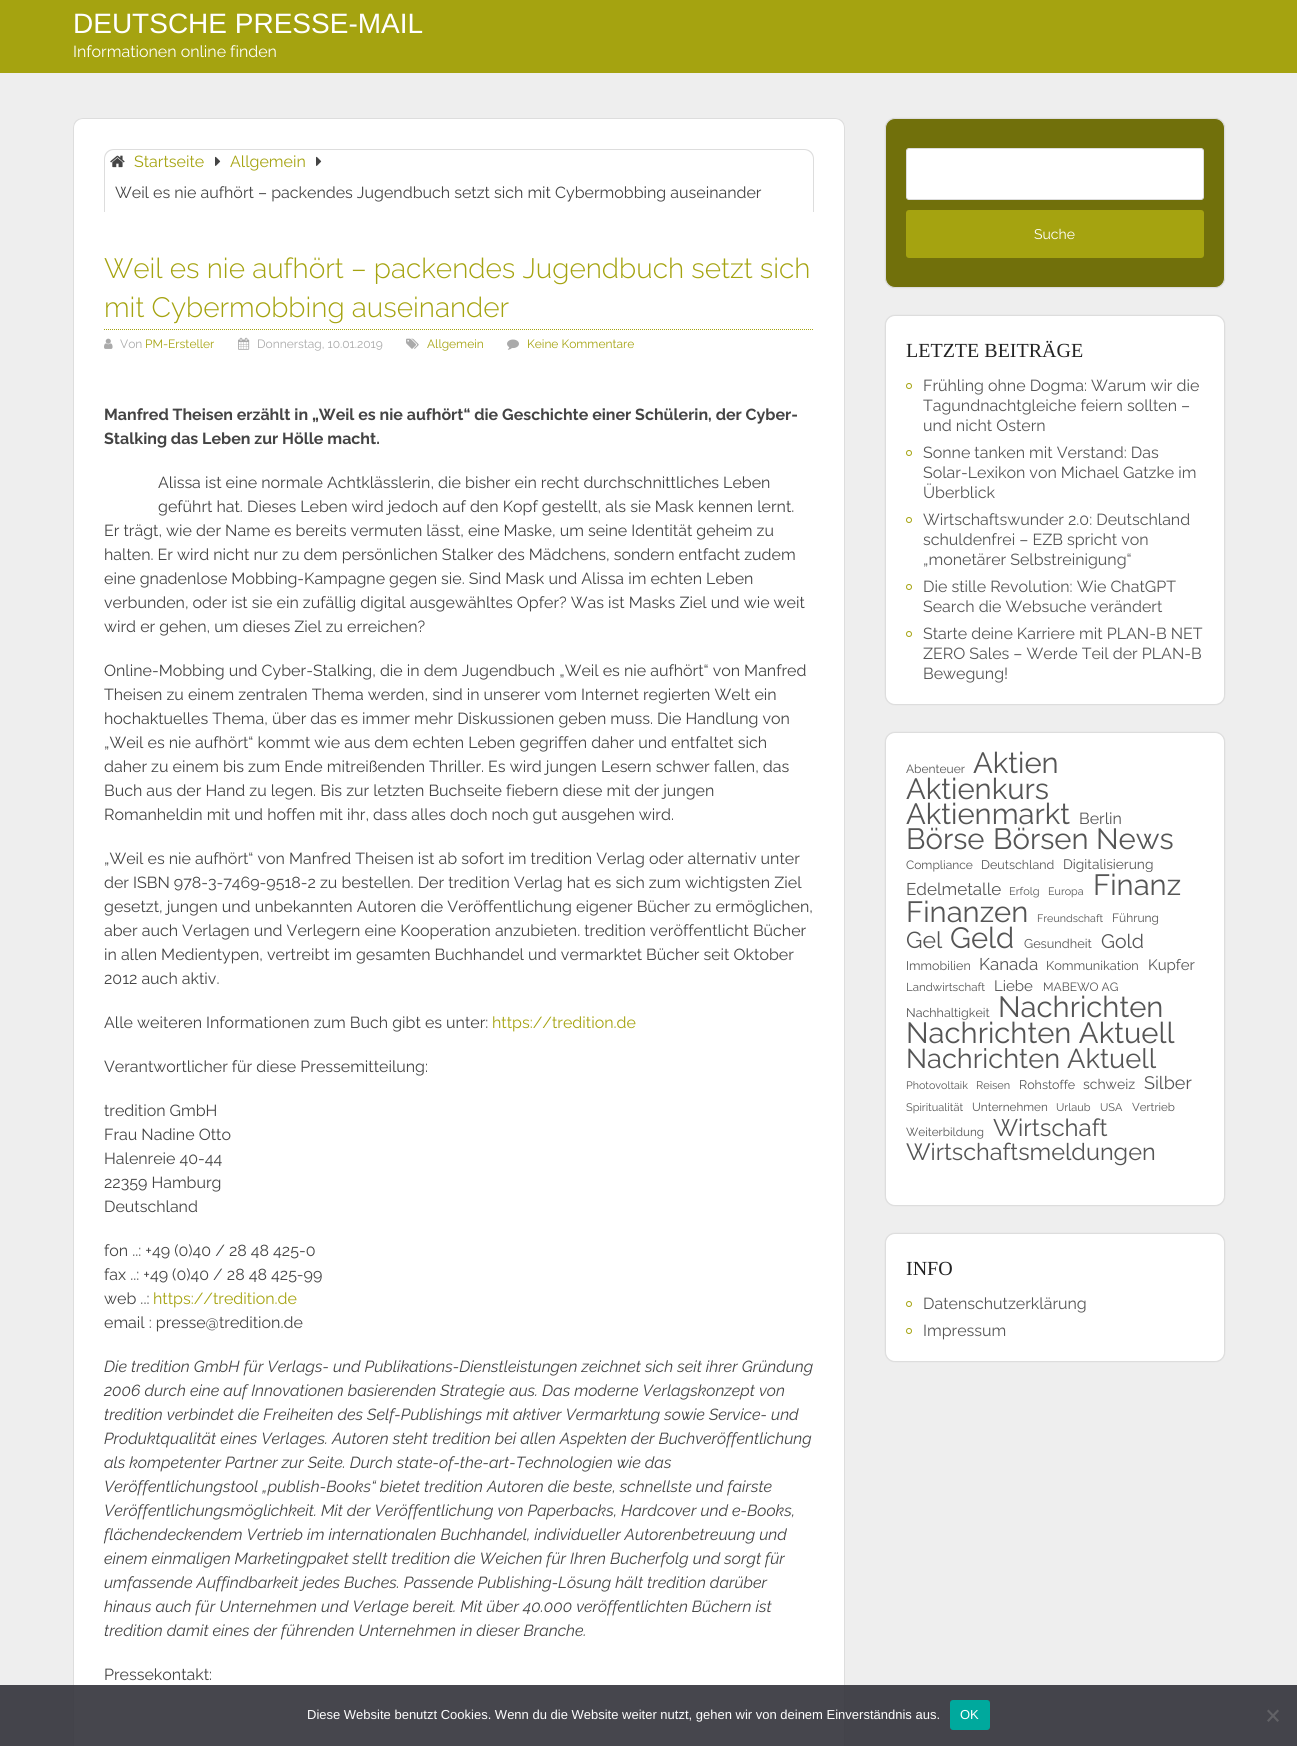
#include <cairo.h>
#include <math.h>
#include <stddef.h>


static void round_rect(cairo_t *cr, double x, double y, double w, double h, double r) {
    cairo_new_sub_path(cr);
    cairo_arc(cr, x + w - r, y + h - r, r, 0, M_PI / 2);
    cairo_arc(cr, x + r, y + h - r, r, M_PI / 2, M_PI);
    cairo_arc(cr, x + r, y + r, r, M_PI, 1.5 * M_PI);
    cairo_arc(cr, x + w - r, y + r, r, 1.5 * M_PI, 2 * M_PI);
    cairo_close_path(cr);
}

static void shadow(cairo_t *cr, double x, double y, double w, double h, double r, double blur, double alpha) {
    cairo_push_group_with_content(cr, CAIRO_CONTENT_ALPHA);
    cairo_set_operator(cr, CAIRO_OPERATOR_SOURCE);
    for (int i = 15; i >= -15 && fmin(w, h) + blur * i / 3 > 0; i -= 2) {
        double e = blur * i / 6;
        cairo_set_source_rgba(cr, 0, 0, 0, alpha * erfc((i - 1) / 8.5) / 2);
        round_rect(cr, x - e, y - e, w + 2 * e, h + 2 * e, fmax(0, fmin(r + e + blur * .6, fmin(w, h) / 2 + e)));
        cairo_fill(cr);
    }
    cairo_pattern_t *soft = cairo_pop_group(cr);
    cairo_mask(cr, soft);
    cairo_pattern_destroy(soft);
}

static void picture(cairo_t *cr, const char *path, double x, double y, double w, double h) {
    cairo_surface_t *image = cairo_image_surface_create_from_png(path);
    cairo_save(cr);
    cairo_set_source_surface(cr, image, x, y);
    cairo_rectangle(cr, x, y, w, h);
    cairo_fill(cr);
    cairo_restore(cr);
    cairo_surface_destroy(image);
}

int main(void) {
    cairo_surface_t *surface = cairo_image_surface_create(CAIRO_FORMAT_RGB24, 1297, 1746);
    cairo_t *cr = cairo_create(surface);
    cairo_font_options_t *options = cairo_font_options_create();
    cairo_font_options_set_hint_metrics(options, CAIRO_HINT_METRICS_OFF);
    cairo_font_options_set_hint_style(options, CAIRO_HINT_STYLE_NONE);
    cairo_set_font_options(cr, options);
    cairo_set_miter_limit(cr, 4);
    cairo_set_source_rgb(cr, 0.933, 0.933, 0.933);
    cairo_paint(cr);
    cairo_set_source_rgb(cr, 0.647, 0.639, 0.063);
    cairo_rectangle(cr, 0, 0, 1297, 73);
    cairo_fill(cr);
    cairo_select_font_face(cr, "Liberation Sans", CAIRO_FONT_SLANT_NORMAL, CAIRO_FONT_WEIGHT_NORMAL);
    cairo_set_font_size(cr, 28);
    cairo_set_source_rgb(cr, 1, 1, 1);
    cairo_move_to(cr, 73, 33);
    cairo_show_text(cr, "DEUTSCHE PRESSE-MAIL");
    cairo_select_font_face(cr, "Raleway", CAIRO_FONT_SLANT_NORMAL, CAIRO_FONT_WEIGHT_NORMAL);
    cairo_set_font_size(cr, 16);
    cairo_move_to(cr, 73, 57);
    cairo_show_text(cr, "Informationen online finden");
    cairo_new_path(cr);
    cairo_move_to(cr, 83, 118);
    cairo_line_to(cr, 835, 118);
    cairo_curve_to(cr, 840.5, 118, 845, 122.5, 845, 128);
    cairo_line_to(cr, 845, 249);
    cairo_line_to(cr, 73, 249);
    cairo_line_to(cr, 73, 128);
    cairo_curve_to(cr, 73, 122.5, 77.5, 118, 83, 118);
    cairo_close_path(cr);
    cairo_fill(cr);
    cairo_set_source_rgb(cr, 0.867, 0.867, 0.867);
    cairo_set_fill_rule(cr, CAIRO_FILL_RULE_EVEN_ODD);
    cairo_new_path(cr);
    cairo_move_to(cr, 83, 118);
    cairo_line_to(cr, 835, 118);
    cairo_curve_to(cr, 841, 118, 845, 122, 845, 128);
    cairo_line_to(cr, 845, 249);
    cairo_line_to(cr, 73, 249);
    cairo_line_to(cr, 73, 128);
    cairo_curve_to(cr, 73, 122, 77, 118, 83, 118);
    cairo_close_path(cr);
    cairo_move_to(cr, 83, 119);
    cairo_line_to(cr, 835, 119);
    cairo_curve_to(cr, 840, 119, 844, 123, 844, 128);
    cairo_line_to(cr, 844, 249);
    cairo_line_to(cr, 74, 249);
    cairo_line_to(cr, 74, 128);
    cairo_curve_to(cr, 74, 123, 78, 119, 83, 119);
    cairo_close_path(cr);
    cairo_fill(cr);
    cairo_new_path(cr);
    cairo_move_to(cr, 114, 149);
    cairo_line_to(cr, 804, 149);
    cairo_curve_to(cr, 810, 149, 814, 153, 814, 159);
    cairo_line_to(cr, 814, 212);
    cairo_line_to(cr, 104, 212);
    cairo_line_to(cr, 104, 159);
    cairo_curve_to(cr, 104, 153, 108, 149, 114, 149);
    cairo_close_path(cr);
    cairo_move_to(cr, 114, 150);
    cairo_line_to(cr, 804, 150);
    cairo_curve_to(cr, 809, 150, 813, 154, 813, 159);
    cairo_line_to(cr, 813, 212);
    cairo_line_to(cr, 105, 212);
    cairo_line_to(cr, 105, 159);
    cairo_curve_to(cr, 105, 154, 109, 150, 114, 150);
    cairo_close_path(cr);
    cairo_fill(cr);
    picture(cr, "img1.png", 110, 155, 15, 13);
    cairo_set_source_rgb(cr, 0.647, 0.639, 0.063);
    cairo_move_to(cr, 134, 167);
    cairo_show_text(cr, "Startseite");
    picture(cr, "img2.png", 215, 156, 6, 10);
    cairo_move_to(cr, 230, 167);
    cairo_show_text(cr, "Allgemein");
    picture(cr, "img2.png", 316, 156, 6, 10);
    cairo_set_source_rgb(cr, 0.267, 0.267, 0.267);
    cairo_move_to(cr, 115, 198);
    cairo_show_text(cr, "Weil es nie aufhört – packendes Jugendbuch setzt sich mit Cybermobbing auseinander");
    cairo_set_source_rgb(cr, 1, 1, 1);
    cairo_rectangle(cr, 74, 249, 770, 1497);
    cairo_fill(cr);
    cairo_set_source_rgb(cr, 0.867, 0.867, 0.867);
    cairo_rectangle(cr, 844, 249, 1, 124);
    cairo_fill(cr);
    cairo_rectangle(cr, 73, 249, 1, 124);
    cairo_fill(cr);
    cairo_select_font_face(cr, "Raleway Light", CAIRO_FONT_SLANT_NORMAL, CAIRO_FONT_WEIGHT_NORMAL);
    cairo_set_font_size(cr, 28);
    cairo_set_source_rgb(cr, 0.647, 0.639, 0.063);
    cairo_move_to(cr, 104, 278);
    cairo_show_text(cr, "Weil es nie aufhört – packendes Jugendbuch setzt sich");
    cairo_move_to(cr, 104, 317);
    cairo_show_text(cr, "mit Cybermobbing auseinander");
    cairo_new_path(cr);
    cairo_move_to(cr, 104, 329.5);
    cairo_line_to(cr, 814, 329.5);
    cairo_set_line_width(cr, 1);
    cairo_set_dash(cr, (double[]){1, 1}, 2, 0);
    cairo_stroke(cr);
    picture(cr, "img3.png", 104, 338, 9, 11);
    cairo_select_font_face(cr, "Raleway", CAIRO_FONT_SLANT_NORMAL, CAIRO_FONT_WEIGHT_NORMAL);
    cairo_set_font_size(cr, 12);
    cairo_set_source_rgb(cr, 0.667, 0.667, 0.667);
    cairo_move_to(cr, 120, 348);
    cairo_show_text(cr, "Von");
    cairo_set_source_rgb(cr, 0.647, 0.639, 0.063);
    cairo_move_to(cr, 145, 348);
    cairo_show_text(cr, "PM-Ersteller");
    picture(cr, "img4.png", 238, 337, 12, 13);
    cairo_set_source_rgb(cr, 0.667, 0.667, 0.667);
    cairo_move_to(cr, 257, 348);
    cairo_show_text(cr, "Donnerstag, 10.01.2019");
    picture(cr, "img5.png", 406, 338, 13, 11);
    cairo_set_source_rgb(cr, 0.647, 0.639, 0.063);
    cairo_move_to(cr, 427, 348);
    cairo_show_text(cr, "Allgemein");
    picture(cr, "img6.png", 507, 339, 12, 11);
    cairo_move_to(cr, 527, 348);
    cairo_show_text(cr, "Keine Kommentare");
    cairo_set_source_rgb(cr, 0.867, 0.867, 0.867);
    cairo_new_path(cr);
    cairo_move_to(cr, 73, 373);
    cairo_line_to(cr, 845, 373);
    cairo_line_to(cr, 845, 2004);
    cairo_curve_to(cr, 845, 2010, 841, 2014, 835, 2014);
    cairo_line_to(cr, 83, 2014);
    cairo_curve_to(cr, 77, 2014, 73, 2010, 73, 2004);
    cairo_close_path(cr);
    cairo_move_to(cr, 74, 373);
    cairo_line_to(cr, 844, 373);
    cairo_line_to(cr, 844, 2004);
    cairo_curve_to(cr, 844, 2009, 840, 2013, 835, 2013);
    cairo_line_to(cr, 83, 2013);
    cairo_curve_to(cr, 78, 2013, 74, 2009, 74, 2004);
    cairo_close_path(cr);
    cairo_fill(cr);
    cairo_select_font_face(cr, "Raleway", CAIRO_FONT_SLANT_NORMAL, CAIRO_FONT_WEIGHT_BOLD);
    cairo_set_font_size(cr, 16);
    cairo_set_source_rgb(cr, 0.267, 0.267, 0.267);
    cairo_move_to(cr, 104, 420);
    cairo_show_text(cr, "Manfred Theisen erzählt in „Weil es nie aufhört“ die Geschichte einer Schülerin, der Cyber-");
    cairo_move_to(cr, 104, 444);
    cairo_show_text(cr, "Stalking das Leben zur Hölle macht.");
    cairo_select_font_face(cr, "Raleway", CAIRO_FONT_SLANT_NORMAL, CAIRO_FONT_WEIGHT_NORMAL);
    cairo_move_to(cr, 158, 488);
    cairo_show_text(cr, "Alissa ist eine normale Achtklässlerin, die bisher ein recht durchschnittliches Leben");
    cairo_move_to(cr, 158, 512);
    cairo_show_text(cr, "geführt hat. Dieses Leben wird jedoch auf den Kopf gestellt, als sie Mask kennen lernt.");
    cairo_move_to(cr, 104, 536);
    cairo_show_text(cr, "Er trägt, wie der Name es bereits vermuten lässt, eine Maske, um seine Identität geheim zu");
    cairo_move_to(cr, 104, 560);
    cairo_show_text(cr, "halten. Er wird nicht nur zu dem persönlichen Stalker des Mädchens, sondern entfacht zudem");
    cairo_move_to(cr, 104, 584);
    cairo_show_text(cr, "eine gnadenlose Mobbing-Kampagne gegen sie. Sind Mask und Alissa im echten Leben");
    cairo_move_to(cr, 104, 608);
    cairo_show_text(cr, "verbunden, oder ist sie ein zufällig digital ausgewähltes Opfer? Was ist Masks Ziel und wie weit");
    cairo_move_to(cr, 104, 632);
    cairo_show_text(cr, "wird er gehen, um dieses Ziel zu erreichen?");
    cairo_move_to(cr, 104, 676);
    cairo_show_text(cr, "Online-Mobbing und Cyber-Stalking, die in dem Jugendbuch „Weil es nie aufhört“ von Manfred");
    cairo_move_to(cr, 104, 700);
    cairo_show_text(cr, "Theisen zu einem zentralen Thema werden, sind in unserer vom Internet regierten Welt ein");
    cairo_move_to(cr, 104, 724);
    cairo_show_text(cr, "hochaktuelles Thema, über das es immer mehr Diskussionen geben muss. Die Handlung von");
    cairo_move_to(cr, 104, 748);
    cairo_show_text(cr, "„Weil es nie aufhört“ kommt wie aus dem echten Leben gegriffen daher und entfaltet sich");
    cairo_move_to(cr, 104, 772);
    cairo_show_text(cr, "daher zu einem bis zum Ende mitreißenden Thriller. Es wird jungen Lesern schwer fallen, das");
    cairo_move_to(cr, 104, 796);
    cairo_show_text(cr, "Buch aus der Hand zu legen. Bis zur letzten Buchseite fiebern diese mit der jungen");
    cairo_move_to(cr, 104, 820);
    cairo_show_text(cr, "Romanheldin mit und hoffen mit ihr, dass alles doch noch gut ausgehen wird.");
    cairo_move_to(cr, 104, 864);
    cairo_show_text(cr, "„Weil es nie aufhört“ von Manfred Theisen ist ab sofort im tredition Verlag oder alternativ unter");
    cairo_move_to(cr, 104, 888);
    cairo_show_text(cr, "der ISBN 978-3-7469-9518-2 zu bestellen. Der tredition Verlag hat es sich zum wichtigsten Ziel");
    cairo_move_to(cr, 104, 912);
    cairo_show_text(cr, "gesetzt, jungen und unbekannten Autoren die Veröffentlichung eigener Bücher zu ermöglichen,");
    cairo_move_to(cr, 104, 936);
    cairo_show_text(cr, "aber auch Verlagen und Verlegern eine Kooperation anzubieten. tredition veröffentlicht Bücher");
    cairo_move_to(cr, 104, 960);
    cairo_show_text(cr, "in allen Medientypen, vertreibt im gesamten Buchhandel und vermarktet Bücher seit Oktober");
    cairo_move_to(cr, 104, 984);
    cairo_show_text(cr, "2012 auch aktiv.");
    cairo_move_to(cr, 104, 1028);
    cairo_show_text(cr, "Alle weiteren Informationen zum Buch gibt es unter:");
    cairo_set_source_rgb(cr, 0.647, 0.639, 0.063);
    cairo_move_to(cr, 492, 1028);
    cairo_show_text(cr, "https://tredition.de");
    cairo_set_source_rgb(cr, 0.267, 0.267, 0.267);
    cairo_move_to(cr, 104, 1072);
    cairo_show_text(cr, "Verantwortlicher für diese Pressemitteilung:");
    cairo_move_to(cr, 104, 1116);
    cairo_show_text(cr, "tredition GmbH");
    cairo_move_to(cr, 104, 1140);
    cairo_show_text(cr, "Frau Nadine Otto");
    cairo_move_to(cr, 104, 1164);
    cairo_show_text(cr, "Halenreie 40-44");
    cairo_move_to(cr, 104, 1188);
    cairo_show_text(cr, "22359 Hamburg");
    cairo_move_to(cr, 104, 1212);
    cairo_show_text(cr, "Deutschland");
    cairo_move_to(cr, 104, 1256);
    cairo_show_text(cr, "fon ..: +49 (0)40 / 28 48 425-0");
    cairo_move_to(cr, 104, 1280);
    cairo_show_text(cr, "fax ..: +49 (0)40 / 28 48 425-99");
    cairo_move_to(cr, 104, 1304);
    cairo_show_text(cr, "web ..:");
    cairo_set_source_rgb(cr, 0.647, 0.639, 0.063);
    cairo_move_to(cr, 153, 1304);
    cairo_show_text(cr, "https://tredition.de");
    cairo_set_source_rgb(cr, 0.267, 0.267, 0.267);
    cairo_move_to(cr, 104, 1328);
    cairo_show_text(cr, "email : presse@tredition.de");
    cairo_select_font_face(cr, "Raleway", CAIRO_FONT_SLANT_ITALIC, CAIRO_FONT_WEIGHT_NORMAL);
    cairo_move_to(cr, 104, 1372);
    cairo_show_text(cr, "Die tredition GmbH für Verlags- und Publikations-Dienstleistungen zeichnet sich seit ihrer Gründung");
    cairo_move_to(cr, 104, 1396);
    cairo_show_text(cr, "2006 durch eine auf Innovationen basierenden Strategie aus. Das moderne Verlagskonzept von");
    cairo_move_to(cr, 104, 1420);
    cairo_show_text(cr, "tredition verbindet die Freiheiten des Self-Publishings mit aktiver Vermarktung sowie Service- und");
    cairo_move_to(cr, 104, 1444);
    cairo_show_text(cr, "Produktqualität eines Verlages. Autoren steht tredition bei allen Aspekten der Buchveröffentlichung");
    cairo_move_to(cr, 104, 1468);
    cairo_show_text(cr, "als kompetenter Partner zur Seite. Durch state-of-the-art-Technologien wie das");
    cairo_move_to(cr, 104, 1492);
    cairo_show_text(cr, "Veröffentlichungstool „publish-Books“ bietet tredition Autoren die beste, schnellste und fairste");
    cairo_move_to(cr, 104, 1516);
    cairo_show_text(cr, "Veröffentlichungsmöglichkeit. Mit der Veröffentlichung von Paperbacks, Hardcover und e-Books,");
    cairo_move_to(cr, 104, 1540);
    cairo_show_text(cr, "flächendeckendem Vertrieb im internationalen Buchhandel, individueller Autorenbetreuung und");
    cairo_move_to(cr, 104, 1564);
    cairo_show_text(cr, "einem einmaligen Marketingpaket stellt tredition die Weichen für Ihren Bucherfolg und sorgt für");
    cairo_move_to(cr, 104, 1588);
    cairo_show_text(cr, "umfassende Auffindbarkeit jedes Buches. Passende Publishing-Lösung hält tredition darüber");
    cairo_move_to(cr, 104, 1612);
    cairo_show_text(cr, "hinaus auch für Unternehmen und Verlage bereit. Mit über 40.000 veröffentlichten Büchern ist");
    cairo_move_to(cr, 104, 1636);
    cairo_show_text(cr, "tredition damit eines der führenden Unternehmen in dieser Branche.");
    cairo_select_font_face(cr, "Raleway", CAIRO_FONT_SLANT_NORMAL, CAIRO_FONT_WEIGHT_NORMAL);
    cairo_move_to(cr, 104, 1680);
    cairo_show_text(cr, "Pressekontakt:");
    cairo_set_source_rgb(cr, 0.196, 0.196, 0.196);
    shadow(cr, 885, 118, 340, 170, 10, 0.5, 0.1);
    cairo_set_source_rgb(cr, 0.443, 0.439, 0.043);
    round_rect(cr, 885.5, 118.5, 339, 169, 9.5);
    cairo_fill_preserve(cr);
    cairo_set_source_rgb(cr, 0.867, 0.867, 0.867);
    cairo_set_dash(cr, NULL, 0, 0);
    cairo_stroke(cr);
    cairo_set_source_rgb(cr, 1, 1, 1);
    round_rect(cr, 906.5, 148.5, 297, 51, 2.5);
    cairo_fill_preserve(cr);
    cairo_set_source_rgb(cr, 0.867, 0.867, 0.867);
    cairo_stroke(cr);
    cairo_set_source_rgb(cr, 0.647, 0.639, 0.063);
    round_rect(cr, 906, 210, 298, 48, 3);
    cairo_fill(cr);
    cairo_set_font_size(cr, 14);
    cairo_set_source_rgb(cr, 1, 1, 1);
    cairo_move_to(cr, 1034, 239);
    cairo_show_text(cr, "Suche");
    cairo_set_source_rgb(cr, 0.196, 0.196, 0.196);
    shadow(cr, 885, 315, 340, 390, 10, 0.5, 0.1);
    cairo_set_source_rgb(cr, 1, 1, 1);
    round_rect(cr, 885.5, 315.5, 339, 389, 9.5);
    cairo_fill_preserve(cr);
    cairo_set_source_rgb(cr, 0.867, 0.867, 0.867);
    cairo_stroke(cr);
    cairo_select_font_face(cr, "Liberation Serif", CAIRO_FONT_SLANT_NORMAL, CAIRO_FONT_WEIGHT_NORMAL);
    cairo_set_font_size(cr, 20);
    cairo_set_source_rgb(cr, 0.133, 0.133, 0.133);
    cairo_move_to(cr, 906, 357);
    cairo_show_text(cr, "LETZTE BEITRÄGE");
    cairo_new_path(cr);
    cairo_arc(cr, 909, 386, 2.5, 0, 2 * M_PI);
    cairo_set_source_rgb(cr, 0.647, 0.639, 0.063);
    cairo_stroke(cr);
    cairo_select_font_face(cr, "Raleway", CAIRO_FONT_SLANT_NORMAL, CAIRO_FONT_WEIGHT_NORMAL);
    cairo_set_font_size(cr, 16);
    cairo_set_source_rgb(cr, 0.333, 0.333, 0.333);
    cairo_move_to(cr, 923, 391);
    cairo_show_text(cr, "Frühling ohne Dogma: Warum wir die");
    cairo_move_to(cr, 923, 411);
    cairo_show_text(cr, "Tagundnachtgleiche feiern sollten –");
    cairo_move_to(cr, 923, 431);
    cairo_show_text(cr, "und nicht Ostern");
    cairo_new_path(cr);
    cairo_arc(cr, 909, 453, 2.5, 0, 2 * M_PI);
    cairo_set_source_rgb(cr, 0.647, 0.639, 0.063);
    cairo_stroke(cr);
    cairo_set_source_rgb(cr, 0.333, 0.333, 0.333);
    cairo_move_to(cr, 923, 458);
    cairo_show_text(cr, "Sonne tanken mit Verstand: Das");
    cairo_move_to(cr, 923, 478);
    cairo_show_text(cr, "Solar-Lexikon von Michael Gatzke im");
    cairo_move_to(cr, 923, 498);
    cairo_show_text(cr, "Überblick");
    cairo_new_path(cr);
    cairo_arc(cr, 909, 520, 2.5, 0, 2 * M_PI);
    cairo_set_source_rgb(cr, 0.647, 0.639, 0.063);
    cairo_stroke(cr);
    cairo_set_source_rgb(cr, 0.333, 0.333, 0.333);
    cairo_move_to(cr, 923, 525);
    cairo_show_text(cr, "Wirtschaftswunder 2.0: Deutschland");
    cairo_move_to(cr, 923, 545);
    cairo_show_text(cr, "schuldenfrei – EZB spricht von");
    cairo_move_to(cr, 923, 565);
    cairo_show_text(cr, "„monetärer Selbstreinigung“");
    cairo_new_path(cr);
    cairo_arc(cr, 909, 587, 2.5, 0, 2 * M_PI);
    cairo_set_source_rgb(cr, 0.647, 0.639, 0.063);
    cairo_stroke(cr);
    cairo_set_source_rgb(cr, 0.333, 0.333, 0.333);
    cairo_move_to(cr, 923, 592);
    cairo_show_text(cr, "Die stille Revolution: Wie ChatGPT");
    cairo_move_to(cr, 923, 612);
    cairo_show_text(cr, "Search die Websuche verändert");
    cairo_new_path(cr);
    cairo_arc(cr, 909, 634, 2.5, 0, 2 * M_PI);
    cairo_set_source_rgb(cr, 0.647, 0.639, 0.063);
    cairo_stroke(cr);
    cairo_set_source_rgb(cr, 0.333, 0.333, 0.333);
    cairo_move_to(cr, 923, 639);
    cairo_show_text(cr, "Starte deine Karriere mit PLAN-B NET");
    cairo_move_to(cr, 923, 659);
    cairo_show_text(cr, "ZERO Sales – Werde Teil der PLAN-B");
    cairo_move_to(cr, 923, 679);
    cairo_show_text(cr, "Bewegung!");
    cairo_set_source_rgb(cr, 0.196, 0.196, 0.196);
    shadow(cr, 885, 732, 340, 474, 10, 0.5, 0.1);
    cairo_set_source_rgb(cr, 1, 1, 1);
    round_rect(cr, 885.5, 732.5, 339, 473, 9.5);
    cairo_fill_preserve(cr);
    cairo_set_source_rgb(cr, 0.867, 0.867, 0.867);
    cairo_stroke(cr);
    cairo_set_font_size(cr, 12);
    cairo_set_source_rgb(cr, 0.333, 0.333, 0.333);
    cairo_move_to(cr, 906, 773);
    cairo_show_text(cr, "Abenteuer");
    cairo_set_font_size(cr, 29.25);
    cairo_move_to(cr, 973, 773);
    cairo_show_text(cr, "Aktien");
    cairo_move_to(cr, 906, 799);
    cairo_show_text(cr, "Aktienkurs");
    cairo_move_to(cr, 906, 824);
    cairo_show_text(cr, "Aktienmarkt");
    cairo_set_font_size(cr, 16);
    cairo_move_to(cr, 1079, 824);
    cairo_show_text(cr, "Berlin");
    cairo_set_font_size(cr, 29.25);
    cairo_move_to(cr, 906, 849);
    cairo_show_text(cr, "Börse");
    cairo_move_to(cr, 993, 849);
    cairo_show_text(cr, "Börsen News");
    cairo_set_font_size(cr, 12);
    cairo_move_to(cr, 906, 869);
    cairo_show_text(cr, "Compliance");
    cairo_set_font_size(cr, 12.5);
    cairo_move_to(cr, 981, 869);
    cairo_show_text(cr, "Deutschland");
    cairo_set_font_size(cr, 13.75);
    cairo_move_to(cr, 1063, 869);
    cairo_show_text(cr, "Digitalisierung");
    cairo_set_font_size(cr, 17);
    cairo_move_to(cr, 906, 895);
    cairo_show_text(cr, "Edelmetalle");
    cairo_set_font_size(cr, 11);
    cairo_move_to(cr, 1009, 895);
    cairo_show_text(cr, "Erfolg");
    cairo_set_font_size(cr, 10.75);
    cairo_move_to(cr, 1048, 895);
    cairo_show_text(cr, "Europa");
    cairo_set_font_size(cr, 29.25);
    cairo_move_to(cr, 1093, 895);
    cairo_show_text(cr, "Finanz");
    cairo_move_to(cr, 906, 922);
    cairo_show_text(cr, "Finanzen");
    cairo_set_font_size(cr, 10.75);
    cairo_move_to(cr, 1037, 922);
    cairo_show_text(cr, "Freundschaft");
    cairo_set_font_size(cr, 12);
    cairo_move_to(cr, 1112, 922);
    cairo_show_text(cr, "Führung");
    cairo_set_font_size(cr, 23);
    cairo_move_to(cr, 906, 948);
    cairo_show_text(cr, "Gel");
    cairo_set_font_size(cr, 29.25);
    cairo_move_to(cr, 950, 948);
    cairo_show_text(cr, "Geld");
    cairo_set_font_size(cr, 12.75);
    cairo_move_to(cr, 1024, 948);
    cairo_show_text(cr, "Gesundheit");
    cairo_set_font_size(cr, 19.5);
    cairo_move_to(cr, 1101, 948);
    cairo_show_text(cr, "Gold");
    cairo_set_font_size(cr, 12.5);
    cairo_move_to(cr, 906, 970);
    cairo_show_text(cr, "Immobilien");
    cairo_set_font_size(cr, 17);
    cairo_move_to(cr, 979, 970);
    cairo_show_text(cr, "Kanada");
    cairo_set_font_size(cr, 12.75);
    cairo_move_to(cr, 1046, 970);
    cairo_show_text(cr, "Kommunikation");
    cairo_set_font_size(cr, 15);
    cairo_move_to(cr, 1148, 970);
    cairo_show_text(cr, "Kupfer");
    cairo_set_font_size(cr, 11.5);
    cairo_move_to(cr, 906, 991);
    cairo_show_text(cr, "Landwirtschaft");
    cairo_set_font_size(cr, 15);
    cairo_move_to(cr, 994, 991);
    cairo_show_text(cr, "Liebe");
    cairo_set_font_size(cr, 12);
    cairo_move_to(cr, 1043, 991);
    cairo_show_text(cr, "MABEWO AG");
    cairo_set_font_size(cr, 12.5);
    cairo_move_to(cr, 906, 1017);
    cairo_show_text(cr, "Nachhaltigkeit");
    cairo_set_font_size(cr, 29.25);
    cairo_move_to(cr, 998, 1017);
    cairo_show_text(cr, "Nachrichten");
    cairo_move_to(cr, 906, 1043);
    cairo_show_text(cr, "Nachrichten Aktuell");
    cairo_set_font_size(cr, 27.25);
    cairo_move_to(cr, 906, 1068);
    cairo_show_text(cr, "Nachrichten Aktuell");
    cairo_set_font_size(cr, 10.75);
    cairo_move_to(cr, 906, 1089);
    cairo_show_text(cr, "Photovoltaik");
    cairo_set_font_size(cr, 11);
    cairo_move_to(cr, 976, 1089);
    cairo_show_text(cr, "Reisen");
    cairo_set_font_size(cr, 12.5);
    cairo_move_to(cr, 1019, 1089);
    cairo_show_text(cr, "Rohstoffe");
    cairo_set_font_size(cr, 14);
    cairo_move_to(cr, 1083, 1089);
    cairo_show_text(cr, "schweiz");
    cairo_set_font_size(cr, 18);
    cairo_move_to(cr, 1144, 1089);
    cairo_show_text(cr, "Silber");
    cairo_set_font_size(cr, 11);
    cairo_move_to(cr, 906, 1111);
    cairo_show_text(cr, "Spiritualität");
    cairo_set_font_size(cr, 11.75);
    cairo_move_to(cr, 972, 1111);
    cairo_show_text(cr, "Unternehmen");
    cairo_set_font_size(cr, 11);
    cairo_move_to(cr, 1056, 1111);
    cairo_show_text(cr, "Urlaub");
    cairo_move_to(cr, 1100, 1111);
    cairo_show_text(cr, "USA");
    cairo_set_font_size(cr, 11.5);
    cairo_move_to(cr, 1132, 1111);
    cairo_show_text(cr, "Vertrieb");
    cairo_set_font_size(cr, 11.75);
    cairo_move_to(cr, 906, 1136);
    cairo_show_text(cr, "Weiterbildung");
    cairo_set_font_size(cr, 24);
    cairo_move_to(cr, 993, 1136);
    cairo_show_text(cr, "Wirtschaft");
    cairo_set_font_size(cr, 23.5);
    cairo_move_to(cr, 906, 1160);
    cairo_show_text(cr, "Wirtschaftsmeldungen");
    cairo_set_source_rgb(cr, 0.196, 0.196, 0.196);
    shadow(cr, 885, 1233, 340, 129, 10, 0.5, 0.1);
    cairo_set_source_rgb(cr, 1, 1, 1);
    round_rect(cr, 885.5, 1233.5, 339, 128, 9.5);
    cairo_fill_preserve(cr);
    cairo_set_source_rgb(cr, 0.867, 0.867, 0.867);
    cairo_stroke(cr);
    cairo_select_font_face(cr, "Liberation Serif", CAIRO_FONT_SLANT_NORMAL, CAIRO_FONT_WEIGHT_NORMAL);
    cairo_set_font_size(cr, 20);
    cairo_set_source_rgb(cr, 0.133, 0.133, 0.133);
    cairo_move_to(cr, 906, 1275);
    cairo_show_text(cr, "INFO");
    cairo_new_path(cr);
    cairo_arc(cr, 909, 1304, 2.5, 0, 2 * M_PI);
    cairo_set_source_rgb(cr, 0.647, 0.639, 0.063);
    cairo_stroke(cr);
    cairo_select_font_face(cr, "Raleway", CAIRO_FONT_SLANT_NORMAL, CAIRO_FONT_WEIGHT_NORMAL);
    cairo_set_font_size(cr, 16);
    cairo_set_source_rgb(cr, 0.333, 0.333, 0.333);
    cairo_move_to(cr, 923, 1309);
    cairo_show_text(cr, "Datenschutzerklärung");
    cairo_new_path(cr);
    cairo_arc(cr, 909, 1331, 2.5, 0, 2 * M_PI);
    cairo_set_source_rgb(cr, 0.647, 0.639, 0.063);
    cairo_stroke(cr);
    cairo_set_source_rgb(cr, 0.333, 0.333, 0.333);
    cairo_move_to(cr, 923, 1336);
    cairo_show_text(cr, "Impressum");
    cairo_set_source_rgba(cr, 0.196, 0.196, 0.227, 0.9);
    cairo_rectangle(cr, 0, 1685, 1297, 61);
    cairo_fill(cr);
    cairo_select_font_face(cr, "Liberation Sans", CAIRO_FONT_SLANT_NORMAL, CAIRO_FONT_WEIGHT_NORMAL);
    cairo_set_font_size(cr, 13);
    cairo_set_source_rgb(cr, 1, 1, 1);
    cairo_move_to(cr, 307, 1719);
    cairo_show_text(cr, "Diese Website benutzt Cookies. Wenn du die Website weiter nutzt, gehen wir von deinem Einverständnis aus.");
    cairo_set_source_rgb(cr, 0, 0.663, 0.616);
    round_rect(cr, 950, 1700, 40, 30, 3);
    cairo_fill(cr);
    cairo_set_source_rgb(cr, 1, 1, 1);
    cairo_move_to(cr, 960, 1719);
    cairo_show_text(cr, "OK");
    cairo_set_source_rgb(cr, 0.384, 0.384, 0.4);
    cairo_set_fill_rule(cr, CAIRO_FILL_RULE_WINDING);
    cairo_new_path(cr);
    cairo_move_to(cr, 1277.5, 1709.5);
    cairo_line_to(cr, 1279, 1711);
    cairo_line_to(cr, 1268.5, 1722);
    cairo_line_to(cr, 1267, 1720.5);
    cairo_close_path(cr);
    cairo_fill(cr);
    cairo_new_path(cr);
    cairo_move_to(cr, 1267, 1711);
    cairo_line_to(cr, 1268.5, 1709.5);
    cairo_line_to(cr, 1279, 1720.5);
    cairo_line_to(cr, 1277.5, 1722);
    cairo_close_path(cr);
    cairo_fill(cr);
    cairo_surface_write_to_png(surface, "page.png");
    cairo_font_options_destroy(options);
    cairo_destroy(cr);
    cairo_surface_destroy(surface);
    return 0;
}
